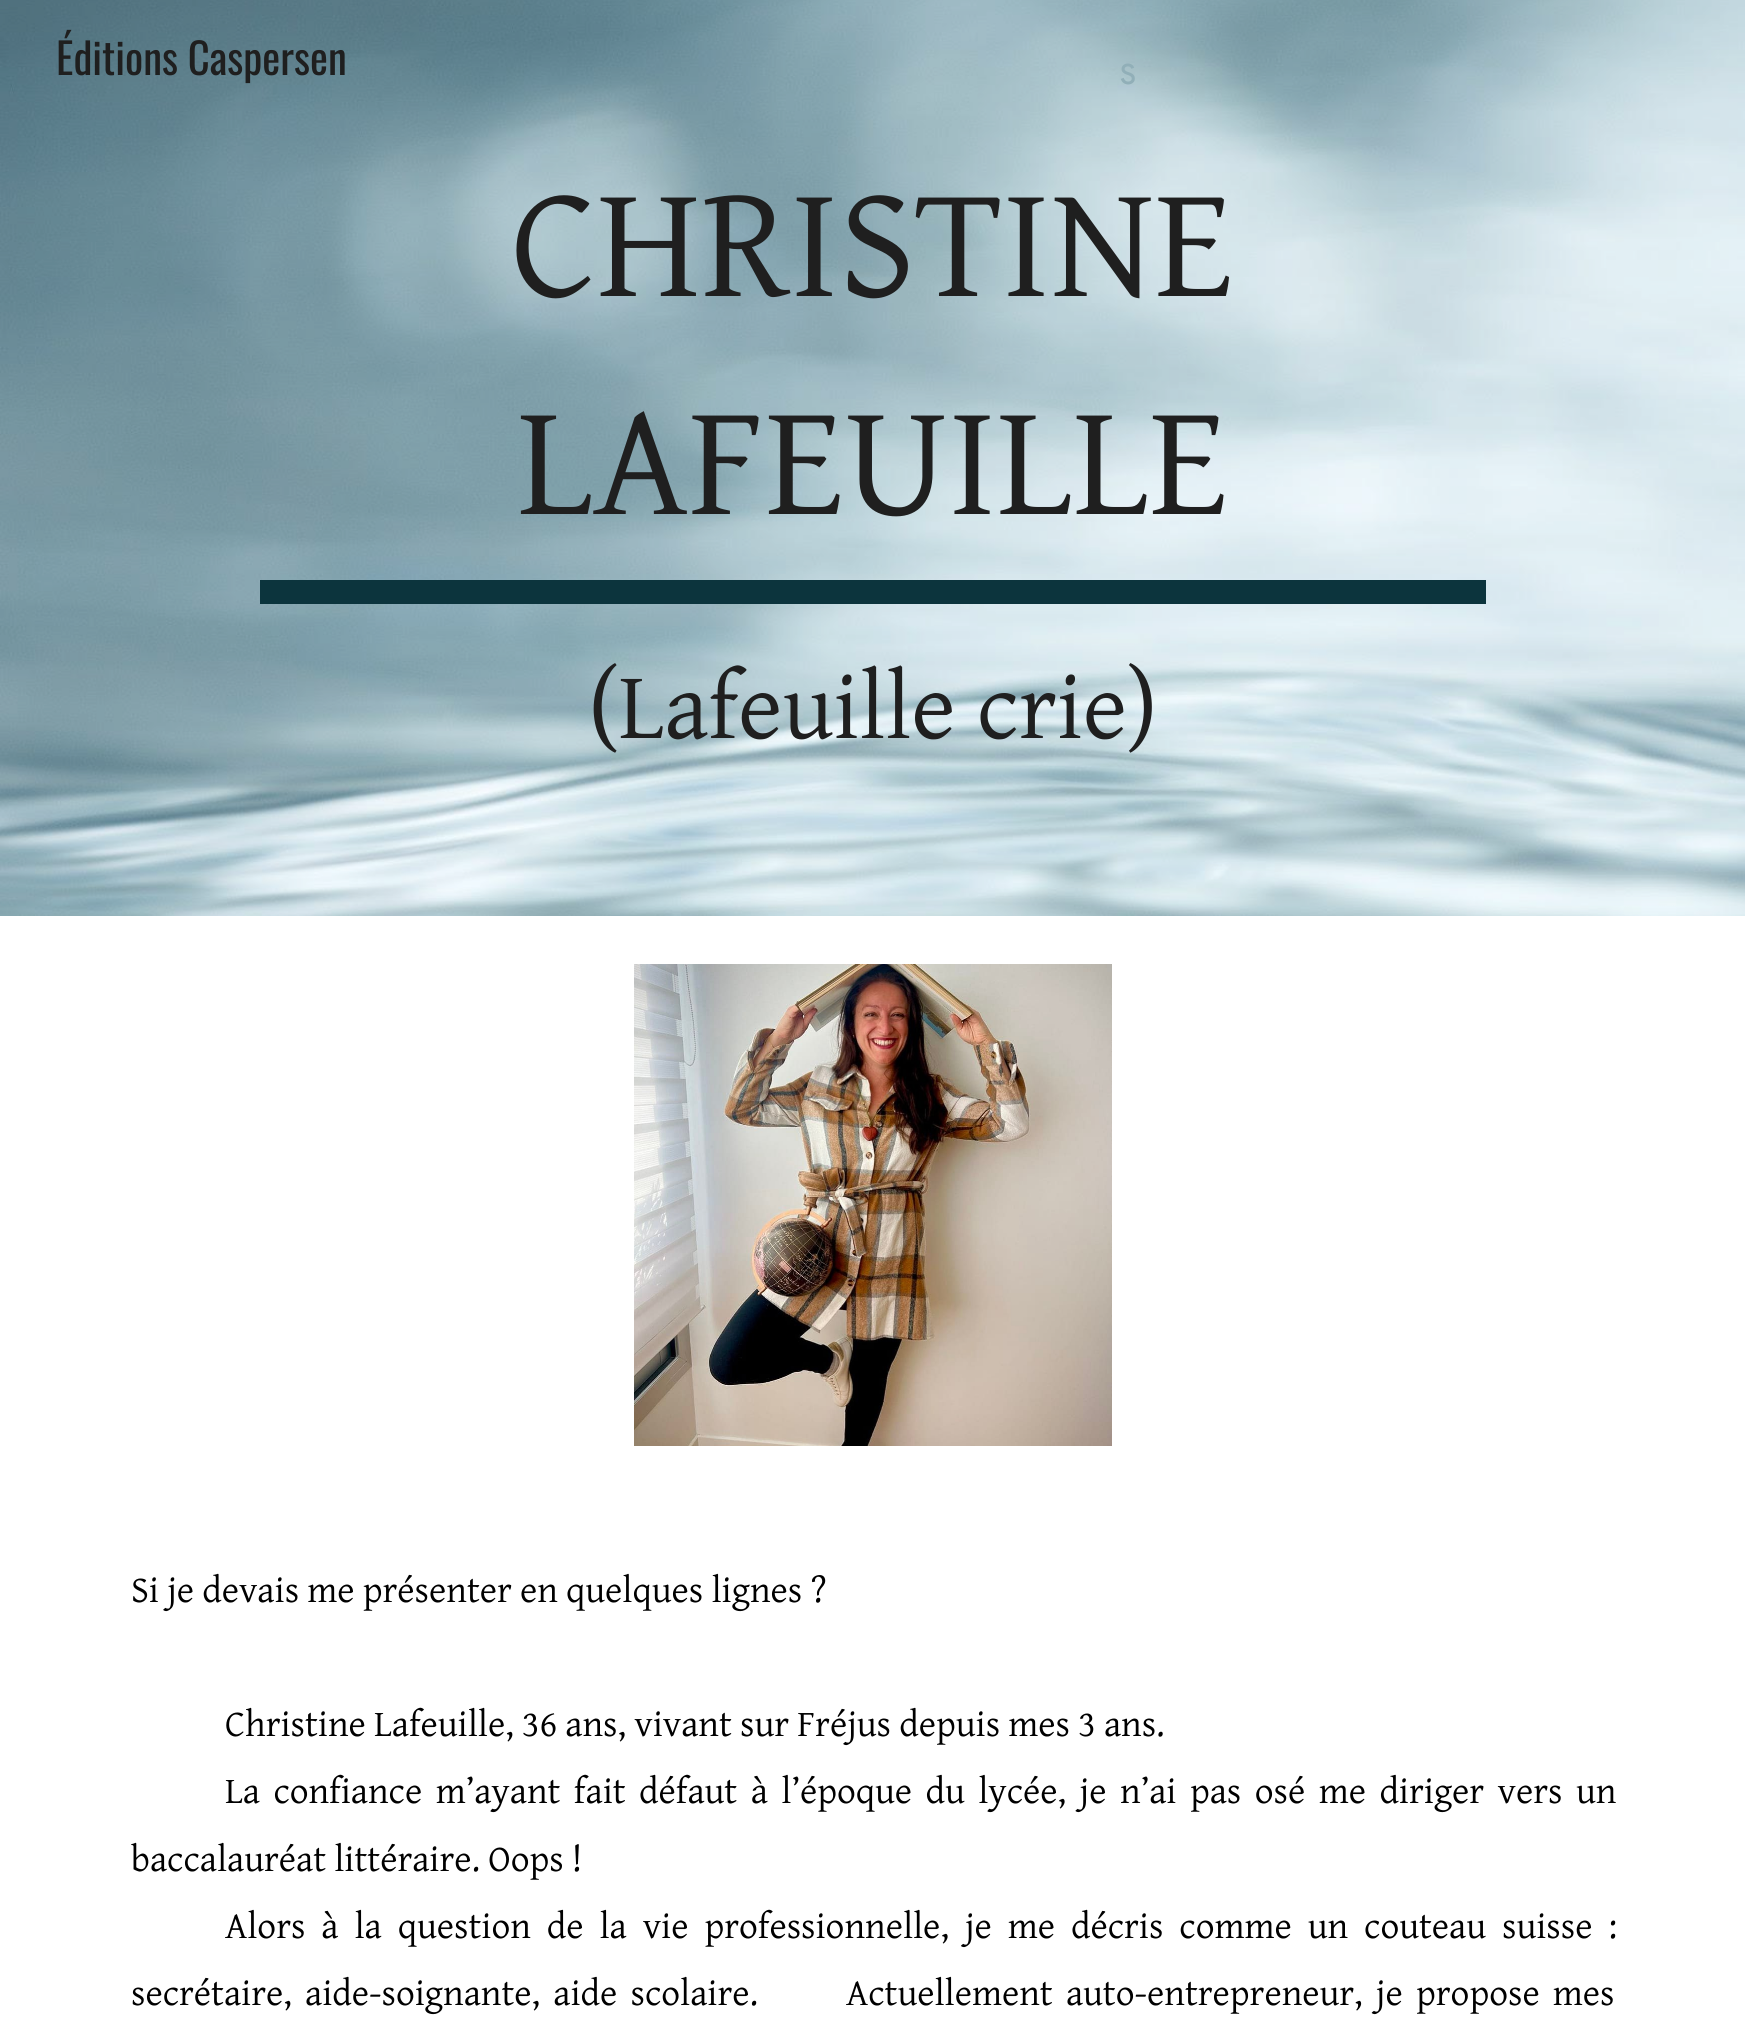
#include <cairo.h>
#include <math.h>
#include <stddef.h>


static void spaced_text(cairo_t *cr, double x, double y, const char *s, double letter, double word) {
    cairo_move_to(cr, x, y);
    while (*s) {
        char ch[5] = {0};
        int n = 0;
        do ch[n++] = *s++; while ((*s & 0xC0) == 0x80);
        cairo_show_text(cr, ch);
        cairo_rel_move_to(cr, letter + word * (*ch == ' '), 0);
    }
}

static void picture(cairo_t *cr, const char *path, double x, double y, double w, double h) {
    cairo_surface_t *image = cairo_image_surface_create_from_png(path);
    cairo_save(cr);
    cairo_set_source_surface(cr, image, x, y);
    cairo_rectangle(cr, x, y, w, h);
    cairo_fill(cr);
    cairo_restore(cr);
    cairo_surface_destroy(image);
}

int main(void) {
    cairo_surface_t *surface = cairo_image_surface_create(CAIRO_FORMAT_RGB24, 1745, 2023);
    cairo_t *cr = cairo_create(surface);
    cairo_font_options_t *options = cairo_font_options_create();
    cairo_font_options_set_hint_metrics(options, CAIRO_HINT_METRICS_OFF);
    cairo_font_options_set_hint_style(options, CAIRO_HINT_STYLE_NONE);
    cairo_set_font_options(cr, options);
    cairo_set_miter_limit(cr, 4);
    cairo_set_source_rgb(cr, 1, 1, 1);
    cairo_paint(cr);
    picture(cr, "img1.png", 0, 0, 1745, 916);
    cairo_select_font_face(cr, "Oswald", CAIRO_FONT_SLANT_NORMAL, CAIRO_FONT_WEIGHT_NORMAL);
    cairo_set_font_size(cr, 42.75);
    cairo_set_source_rgb(cr, 0.122, 0.122, 0.122);
    cairo_move_to(cr, 56, 75);
    cairo_show_text(cr, "Éditions Caspersen");
    cairo_select_font_face(cr, "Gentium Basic", CAIRO_FONT_SLANT_NORMAL, CAIRO_FONT_WEIGHT_NORMAL);
    cairo_set_font_size(cr, 160);
    cairo_move_to(cr, 511, 296);
    cairo_show_text(cr, "CHRISTINE");
    cairo_move_to(cr, 517, 514);
    cairo_show_text(cr, "LAFEUILLE");
    cairo_set_source_rgb(cr, 0.047, 0.204, 0.239);
    cairo_rectangle(cr, 260, 580, 1226, 24);
    cairo_fill(cr);
    cairo_set_font_size(cr, 96);
    cairo_set_source_rgb(cr, 0.122, 0.122, 0.122);
    cairo_move_to(cr, 588, 738);
    cairo_show_text(cr, "(Lafeuille crie)");
    picture(cr, "img2.png", 634, 964, 478, 482);
    cairo_set_font_size(cr, 37.35);
    cairo_set_source_rgb(cr, 0, 0, 0);
    cairo_move_to(cr, 131, 1602);
    cairo_show_text(cr, "Si je devais me présenter en quelques lignes ?");
    cairo_move_to(cr, 225, 1736);
    cairo_show_text(cr, "Christine Lafeuille, 36 ans, vivant sur Fréjus depuis mes 3 ans.");
    spaced_text(cr, 225, 1803, "La confiance m’ayant fait défaut à l’époque du lycée, je n’ai pas osé me diriger vers un", 0, 5.25);
    cairo_move_to(cr, 131, 1871);
    cairo_show_text(cr, "baccalauréat littéraire. Oops !");
    spaced_text(cr, 225, 1938, "Alors à la question de la vie professionnelle, je me décris comme un couteau suisse :", 0, 7.75);
    spaced_text(cr, 131, 2005, "secrétaire, aide-soignante, aide scolaire.", 0, 5);
    spaced_text(cr, 846, 2005, "Actuellement auto-entrepreneur, je propose mes", 0, 5);
    cairo_select_font_face(cr, "Google Sans Medium", CAIRO_FONT_SLANT_NORMAL, CAIRO_FONT_WEIGHT_NORMAL);
    cairo_set_font_size(cr, 28);
    cairo_set_source_rgb(cr, 0.569, 0.686, 0.722);
    cairo_move_to(cr, 1120, 84);
    cairo_show_text(cr, "S");
    cairo_surface_write_to_png(surface, "page.png");
    cairo_font_options_destroy(options);
    cairo_destroy(cr);
    cairo_surface_destroy(surface);
    return 0;
}
